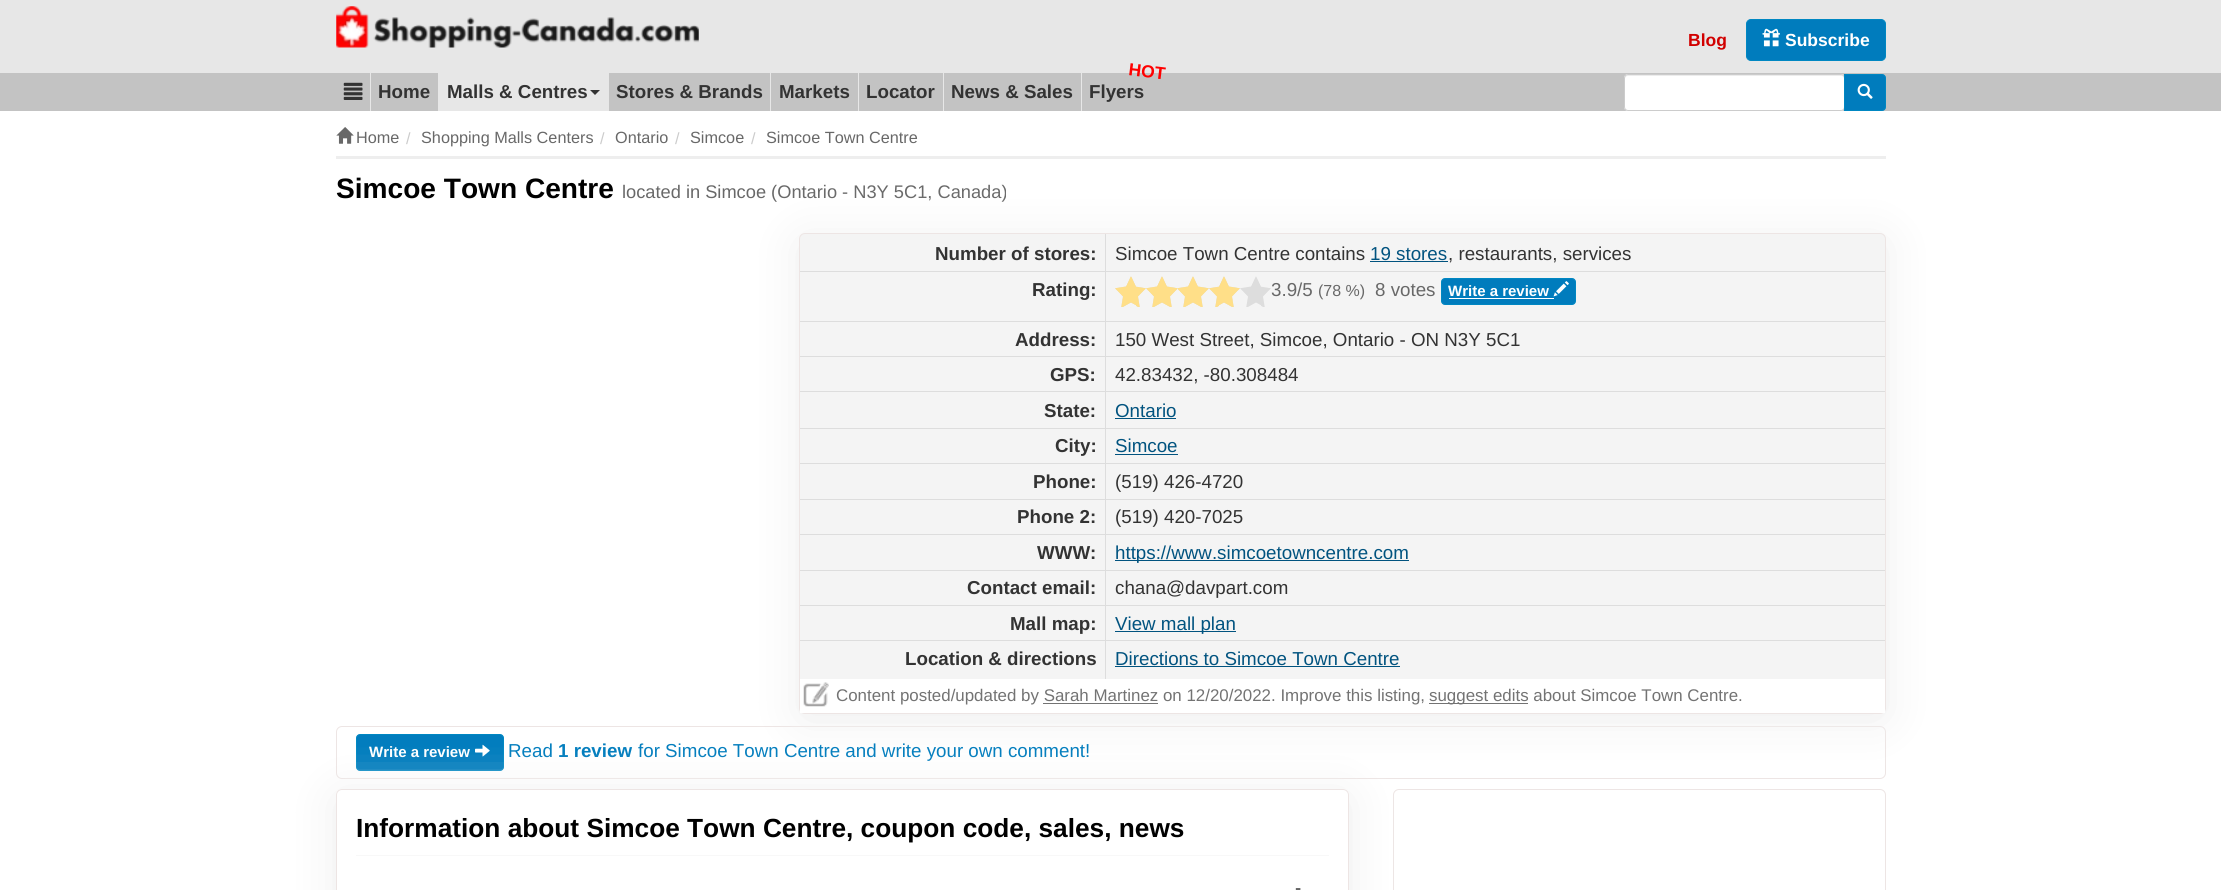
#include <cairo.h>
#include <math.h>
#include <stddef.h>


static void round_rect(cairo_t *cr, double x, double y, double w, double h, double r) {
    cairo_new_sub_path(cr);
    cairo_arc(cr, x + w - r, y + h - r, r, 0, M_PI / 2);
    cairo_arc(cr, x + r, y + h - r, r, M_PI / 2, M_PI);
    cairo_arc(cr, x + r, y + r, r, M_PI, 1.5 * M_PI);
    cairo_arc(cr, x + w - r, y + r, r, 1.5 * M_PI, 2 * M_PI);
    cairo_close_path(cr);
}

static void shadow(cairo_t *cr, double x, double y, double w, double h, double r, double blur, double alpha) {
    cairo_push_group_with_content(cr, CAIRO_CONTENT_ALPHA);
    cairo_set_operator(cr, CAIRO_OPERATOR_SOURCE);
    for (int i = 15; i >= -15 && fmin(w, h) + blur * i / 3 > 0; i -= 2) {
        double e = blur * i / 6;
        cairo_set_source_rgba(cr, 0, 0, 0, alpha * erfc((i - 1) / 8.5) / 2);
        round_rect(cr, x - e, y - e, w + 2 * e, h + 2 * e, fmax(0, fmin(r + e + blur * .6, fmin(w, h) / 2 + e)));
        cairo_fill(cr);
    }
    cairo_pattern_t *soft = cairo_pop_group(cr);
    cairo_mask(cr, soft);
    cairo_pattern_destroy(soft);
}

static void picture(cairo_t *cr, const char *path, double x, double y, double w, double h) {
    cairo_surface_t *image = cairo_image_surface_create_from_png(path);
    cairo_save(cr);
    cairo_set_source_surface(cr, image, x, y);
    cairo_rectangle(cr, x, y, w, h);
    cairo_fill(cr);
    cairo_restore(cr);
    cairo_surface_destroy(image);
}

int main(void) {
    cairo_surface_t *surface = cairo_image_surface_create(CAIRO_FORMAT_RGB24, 2221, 890);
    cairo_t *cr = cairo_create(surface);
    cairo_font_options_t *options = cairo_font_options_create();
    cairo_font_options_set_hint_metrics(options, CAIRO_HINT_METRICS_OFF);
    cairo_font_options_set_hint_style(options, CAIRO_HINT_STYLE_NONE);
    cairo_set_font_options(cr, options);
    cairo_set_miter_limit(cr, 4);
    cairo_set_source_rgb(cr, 1, 1, 1);
    cairo_paint(cr);
    cairo_set_source_rgb(cr, 0.906, 0.906, 0.906);
    cairo_rectangle(cr, 0, 0, 2221, 73);
    cairo_fill(cr);
    picture(cr, "img1.png", 336, 6, 363, 42);
    cairo_select_font_face(cr, "Liberation Sans", CAIRO_FONT_SLANT_NORMAL, CAIRO_FONT_WEIGHT_BOLD);
    cairo_set_font_size(cr, 17.5);
    cairo_set_source_rgb(cr, 0.82, 0, 0);
    cairo_move_to(cr, 1688, 46);
    cairo_show_text(cr, "Blog");
    cairo_set_source_rgb(cr, 0, 0.486, 0.741);
    round_rect(cr, 1746.5, 19.5, 139, 41, 4.5);
    cairo_fill_preserve(cr);
    cairo_set_source_rgb(cr, 0, 0.529, 0.761);
    cairo_set_line_width(cr, 1);
    cairo_stroke(cr);
    picture(cr, "img2.png", 1762, 28, 18, 19);
    cairo_set_source_rgb(cr, 1, 1, 1);
    cairo_move_to(cr, 1785, 46);
    cairo_show_text(cr, "Subscribe");
    cairo_set_source_rgb(cr, 0.765, 0.765, 0.765);
    cairo_rectangle(cr, 0, 73, 2221, 38);
    cairo_fill(cr);
    cairo_set_source_rgb(cr, 0.906, 0.906, 0.906);
    cairo_rectangle(cr, 370, 73, 1, 38);
    cairo_fill(cr);
    picture(cr, "img3.png", 343, 82, 20, 18);
    cairo_rectangle(cr, 438, 73, 1, 38);
    cairo_fill(cr);
    cairo_set_font_size(cr, 18.75);
    cairo_set_source_rgb(cr, 0.2, 0.2, 0.2);
    cairo_move_to(cr, 378, 98);
    cairo_show_text(cr, "Home");
    cairo_set_source_rgb(cr, 0.906, 0.906, 0.906);
    cairo_rectangle(cr, 439, 73, 170, 38);
    cairo_fill(cr);
    cairo_set_source_rgb(cr, 0.2, 0.2, 0.2);
    cairo_move_to(cr, 447, 98);
    cairo_show_text(cr, "Malls & Centres");
    cairo_new_path(cr);
    cairo_move_to(cr, 590, 90);
    cairo_line_to(cr, 600, 90);
    cairo_line_to(cr, 595, 95);
    cairo_close_path(cr);
    cairo_fill(cr);
    cairo_set_source_rgb(cr, 0.906, 0.906, 0.906);
    cairo_rectangle(cr, 770, 73, 1, 38);
    cairo_fill(cr);
    cairo_set_source_rgb(cr, 0.2, 0.2, 0.2);
    cairo_move_to(cr, 616, 98);
    cairo_show_text(cr, "Stores & Brands");
    cairo_set_source_rgb(cr, 0.906, 0.906, 0.906);
    cairo_rectangle(cr, 858, 73, 1, 38);
    cairo_fill(cr);
    cairo_set_source_rgb(cr, 0.2, 0.2, 0.2);
    cairo_move_to(cr, 779, 98);
    cairo_show_text(cr, "Markets");
    cairo_set_source_rgb(cr, 0.906, 0.906, 0.906);
    cairo_rectangle(cr, 943, 73, 1, 38);
    cairo_fill(cr);
    cairo_set_source_rgb(cr, 0.2, 0.2, 0.2);
    cairo_move_to(cr, 866, 98);
    cairo_show_text(cr, "Locator");
    cairo_set_source_rgb(cr, 0.906, 0.906, 0.906);
    cairo_rectangle(cr, 1081, 73, 1, 38);
    cairo_fill(cr);
    cairo_set_source_rgb(cr, 0.2, 0.2, 0.2);
    cairo_move_to(cr, 951, 98);
    cairo_show_text(cr, "News & Sales");
    cairo_set_font_size(cr, 17.5);
    cairo_set_source_rgb(cr, 1, 0, 0);
    cairo_save(cr);
    cairo_translate(cr, 1128, 75);
    cairo_rotate(cr, 7 * M_PI / 180);
    cairo_move_to(cr, 0, 0);
    cairo_show_text(cr, "HOT");
    cairo_restore(cr);
    cairo_set_font_size(cr, 18.75);
    cairo_set_source_rgb(cr, 0.2, 0.2, 0.2);
    cairo_move_to(cr, 1089, 98);
    cairo_show_text(cr, "Flyers");
    cairo_set_source_rgb(cr, 1, 1, 1);
    round_rect(cr, 1624, 74, 221, 37, 4);
    cairo_fill(cr);
    cairo_set_source_rgb(cr, 0.925, 0.925, 0.925);
    cairo_new_path(cr);
    cairo_move_to(cr, 1628, 76);
    cairo_line_to(cr, 1841, 76);
    cairo_curve_to(cr, 1843, 76, 1844, 77, 1844, 79);
    cairo_line_to(cr, 1844, 78);
    cairo_curve_to(cr, 1844, 76, 1843, 75, 1842, 75);
    cairo_line_to(cr, 1628, 75);
    cairo_curve_to(cr, 1626, 75, 1625, 76, 1625, 78);
    cairo_line_to(cr, 1625, 79);
    cairo_curve_to(cr, 1625, 77, 1626, 76, 1628, 76);
    cairo_close_path(cr);
    cairo_fill(cr);
    round_rect(cr, 1624.5, 74.5, 220, 36, 3.5);
    cairo_set_source_rgb(cr, 0.8, 0.8, 0.8);
    cairo_stroke(cr);
    cairo_set_source_rgb(cr, 0, 0.486, 0.741);
    cairo_new_path(cr);
    cairo_move_to(cr, 1844.5, 74.5);
    cairo_line_to(cr, 1882, 74.5);
    cairo_curve_to(cr, 1884, 74.5, 1885.5, 76, 1885.5, 78);
    cairo_line_to(cr, 1885.5, 107);
    cairo_curve_to(cr, 1885.5, 109, 1884, 110.5, 1882, 110.5);
    cairo_line_to(cr, 1844.5, 110.5);
    cairo_close_path(cr);
    cairo_fill_preserve(cr);
    cairo_set_source_rgb(cr, 0, 0.529, 0.761);
    cairo_stroke(cr);
    picture(cr, "img4.png", 1857, 83, 16, 16);
    cairo_set_source_rgb(cr, 0.933, 0.933, 0.933);
    cairo_rectangle(cr, 336, 156, 1550, 3);
    cairo_fill(cr);
    picture(cr, "img5.png", 336, 127, 18, 17);
    cairo_select_font_face(cr, "Liberation Sans", CAIRO_FONT_SLANT_NORMAL, CAIRO_FONT_WEIGHT_NORMAL);
    cairo_set_font_size(cr, 16.25);
    cairo_set_source_rgb(cr, 0.408, 0.408, 0.408);
    cairo_move_to(cr, 356, 143);
    cairo_show_text(cr, "Home");
    cairo_set_source_rgb(cr, 0.8, 0.8, 0.8);
    cairo_move_to(cr, 406, 144);
    cairo_show_text(cr, "/");
    cairo_set_source_rgb(cr, 0.408, 0.408, 0.408);
    cairo_move_to(cr, 421, 143);
    cairo_show_text(cr, "Shopping Malls Centers");
    cairo_set_source_rgb(cr, 0.8, 0.8, 0.8);
    cairo_move_to(cr, 600, 144);
    cairo_show_text(cr, "/");
    cairo_set_source_rgb(cr, 0.408, 0.408, 0.408);
    cairo_move_to(cr, 615, 143);
    cairo_show_text(cr, "Ontario");
    cairo_set_source_rgb(cr, 0.8, 0.8, 0.8);
    cairo_move_to(cr, 675, 144);
    cairo_show_text(cr, "/");
    cairo_set_source_rgb(cr, 0.408, 0.408, 0.408);
    cairo_move_to(cr, 690, 143);
    cairo_show_text(cr, "Simcoe");
    cairo_set_source_rgb(cr, 0.8, 0.8, 0.8);
    cairo_move_to(cr, 751, 144);
    cairo_show_text(cr, "/");
    cairo_set_source_rgb(cr, 0.408, 0.408, 0.408);
    cairo_move_to(cr, 766, 143);
    cairo_show_text(cr, "Simcoe Town Centre");
    cairo_select_font_face(cr, "Liberation Sans", CAIRO_FONT_SLANT_NORMAL, CAIRO_FONT_WEIGHT_BOLD);
    cairo_set_font_size(cr, 28.1);
    cairo_set_source_rgb(cr, 0, 0, 0);
    cairo_move_to(cr, 336, 198);
    cairo_show_text(cr, "Simcoe Town Centre");
    cairo_select_font_face(cr, "Liberation Sans", CAIRO_FONT_SLANT_NORMAL, CAIRO_FONT_WEIGHT_NORMAL);
    cairo_set_font_size(cr, 18.25);
    cairo_set_source_rgb(cr, 0.408, 0.408, 0.408);
    cairo_move_to(cr, 622, 198);
    cairo_show_text(cr, "located in Simcoe (Ontario - N3Y 5C1, Canada)");
    round_rect(cr, 336.5, 726.5, 1549, 52, 5.5);
    cairo_set_source_rgb(cr, 0.929, 0.898, 0.894);
    cairo_stroke(cr);
    cairo_set_source_rgb(cr, 0.933, 0.933, 0.933);
    shadow(cr, 799, 239, 1087, 481, 6, 22, 1);
    cairo_set_source_rgb(cr, 0.957, 0.957, 0.957);
    round_rect(cr, 799.5, 233.5, 1086, 480, 5.5);
    cairo_fill_preserve(cr);
    cairo_set_source_rgb(cr, 0.929, 0.898, 0.894);
    cairo_stroke(cr);
    cairo_set_source_rgb(cr, 0.867, 0.867, 0.867);
    cairo_rectangle(cr, 1105, 234, 1, 37);
    cairo_fill(cr);
    cairo_select_font_face(cr, "Liberation Sans", CAIRO_FONT_SLANT_NORMAL, CAIRO_FONT_WEIGHT_BOLD);
    cairo_set_font_size(cr, 18.75);
    cairo_set_source_rgb(cr, 0.2, 0.2, 0.2);
    cairo_move_to(cr, 935, 260);
    cairo_show_text(cr, "Number of stores:");
    cairo_select_font_face(cr, "Liberation Sans", CAIRO_FONT_SLANT_NORMAL, CAIRO_FONT_WEIGHT_NORMAL);
    cairo_move_to(cr, 1115, 260);
    cairo_show_text(cr, "Simcoe Town Centre contains");
    cairo_set_source_rgb(cr, 0.004, 0.325, 0.498);
    cairo_move_to(cr, 1370, 260);
    cairo_show_text(cr, "19 stores");
    cairo_rectangle(cr, 1370, 261, 78, 1);
    cairo_fill(cr);
    cairo_set_source_rgb(cr, 0.2, 0.2, 0.2);
    cairo_move_to(cr, 1448, 260);
    cairo_show_text(cr, ", restaurants, services");
    cairo_set_source_rgb(cr, 0.867, 0.867, 0.867);
    cairo_rectangle(cr, 800, 271, 1085, 1);
    cairo_fill(cr);
    cairo_rectangle(cr, 1105, 271, 1, 50);
    cairo_fill(cr);
    cairo_select_font_face(cr, "Liberation Sans", CAIRO_FONT_SLANT_NORMAL, CAIRO_FONT_WEIGHT_BOLD);
    cairo_set_source_rgb(cr, 0.2, 0.2, 0.2);
    cairo_move_to(cr, 1032, 296);
    cairo_show_text(cr, "Rating:");
    picture(cr, "img6.png", 1115, 276, 156, 31);
    picture(cr, "img7.png", 1115, 276, 125, 32);
    cairo_select_font_face(cr, "Liberation Sans", CAIRO_FONT_SLANT_NORMAL, CAIRO_FONT_WEIGHT_NORMAL);
    cairo_set_source_rgb(cr, 0.408, 0.408, 0.408);
    cairo_move_to(cr, 1271, 296);
    cairo_show_text(cr, "3.9/5");
    cairo_set_font_size(cr, 16);
    cairo_move_to(cr, 1318, 296);
    cairo_show_text(cr, "(78 %)");
    cairo_set_font_size(cr, 18.75);
    cairo_move_to(cr, 1375, 296);
    cairo_show_text(cr, "8 votes");
    cairo_set_source_rgb(cr, 0, 0.486, 0.741);
    round_rect(cr, 1441.5, 278.5, 134, 26, 3.5);
    cairo_fill_preserve(cr);
    cairo_set_source_rgb(cr, 0, 0.529, 0.761);
    cairo_stroke(cr);
    cairo_select_font_face(cr, "Liberation Sans", CAIRO_FONT_SLANT_NORMAL, CAIRO_FONT_WEIGHT_BOLD);
    cairo_set_font_size(cr, 15);
    cairo_set_source_rgb(cr, 1, 1, 1);
    cairo_move_to(cr, 1448, 296);
    cairo_show_text(cr, "Write a review");
    cairo_rectangle(cr, 1449, 298, 105, 1);
    cairo_fill(cr);
    picture(cr, "img8.png", 1553, 281, 16, 16);
    cairo_set_source_rgb(cr, 0.867, 0.867, 0.867);
    cairo_rectangle(cr, 800, 321, 1085, 1);
    cairo_fill(cr);
    cairo_rectangle(cr, 1105, 321, 1, 35);
    cairo_fill(cr);
    cairo_set_font_size(cr, 18.75);
    cairo_set_source_rgb(cr, 0.2, 0.2, 0.2);
    cairo_move_to(cr, 1015, 346);
    cairo_show_text(cr, "Address:");
    cairo_select_font_face(cr, "Liberation Sans", CAIRO_FONT_SLANT_NORMAL, CAIRO_FONT_WEIGHT_NORMAL);
    cairo_move_to(cr, 1115, 346);
    cairo_show_text(cr, "150 West Street, Simcoe, Ontario - ON N3Y 5C1");
    cairo_set_source_rgb(cr, 0.867, 0.867, 0.867);
    cairo_rectangle(cr, 800, 356, 1085, 1);
    cairo_fill(cr);
    cairo_rectangle(cr, 1105, 356, 1, 35);
    cairo_fill(cr);
    cairo_select_font_face(cr, "Liberation Sans", CAIRO_FONT_SLANT_NORMAL, CAIRO_FONT_WEIGHT_BOLD);
    cairo_set_source_rgb(cr, 0.2, 0.2, 0.2);
    cairo_move_to(cr, 1050, 381);
    cairo_show_text(cr, "GPS:");
    cairo_select_font_face(cr, "Liberation Sans", CAIRO_FONT_SLANT_NORMAL, CAIRO_FONT_WEIGHT_NORMAL);
    cairo_move_to(cr, 1115, 381);
    cairo_show_text(cr, "42.83432, -80.308484");
    cairo_set_source_rgb(cr, 0.867, 0.867, 0.867);
    cairo_rectangle(cr, 800, 391, 1085, 1);
    cairo_fill(cr);
    cairo_rectangle(cr, 1105, 391, 1, 37);
    cairo_fill(cr);
    cairo_select_font_face(cr, "Liberation Sans", CAIRO_FONT_SLANT_NORMAL, CAIRO_FONT_WEIGHT_BOLD);
    cairo_set_source_rgb(cr, 0.2, 0.2, 0.2);
    cairo_move_to(cr, 1044, 417);
    cairo_show_text(cr, "State:");
    cairo_select_font_face(cr, "Liberation Sans", CAIRO_FONT_SLANT_NORMAL, CAIRO_FONT_WEIGHT_NORMAL);
    cairo_set_source_rgb(cr, 0.004, 0.325, 0.498);
    cairo_move_to(cr, 1115, 417);
    cairo_show_text(cr, "Ontario");
    cairo_rectangle(cr, 1115, 418, 61, 1);
    cairo_fill(cr);
    cairo_set_source_rgb(cr, 0.867, 0.867, 0.867);
    cairo_rectangle(cr, 800, 428, 1085, 1);
    cairo_fill(cr);
    cairo_rectangle(cr, 1105, 428, 1, 35);
    cairo_fill(cr);
    cairo_select_font_face(cr, "Liberation Sans", CAIRO_FONT_SLANT_NORMAL, CAIRO_FONT_WEIGHT_BOLD);
    cairo_set_source_rgb(cr, 0.2, 0.2, 0.2);
    cairo_move_to(cr, 1055, 452);
    cairo_show_text(cr, "City:");
    cairo_select_font_face(cr, "Liberation Sans", CAIRO_FONT_SLANT_NORMAL, CAIRO_FONT_WEIGHT_NORMAL);
    cairo_set_source_rgb(cr, 0.004, 0.325, 0.498);
    cairo_move_to(cr, 1115, 452);
    cairo_show_text(cr, "Simcoe");
    cairo_rectangle(cr, 1115, 454, 63, 1);
    cairo_fill(cr);
    cairo_set_source_rgb(cr, 0.867, 0.867, 0.867);
    cairo_rectangle(cr, 800, 463, 1085, 1);
    cairo_fill(cr);
    cairo_rectangle(cr, 1105, 463, 1, 36);
    cairo_fill(cr);
    cairo_select_font_face(cr, "Liberation Sans", CAIRO_FONT_SLANT_NORMAL, CAIRO_FONT_WEIGHT_BOLD);
    cairo_set_source_rgb(cr, 0.2, 0.2, 0.2);
    cairo_move_to(cr, 1033, 488);
    cairo_show_text(cr, "Phone:");
    cairo_select_font_face(cr, "Liberation Sans", CAIRO_FONT_SLANT_NORMAL, CAIRO_FONT_WEIGHT_NORMAL);
    cairo_move_to(cr, 1115, 488);
    cairo_show_text(cr, "(519) 426-4720");
    cairo_set_source_rgb(cr, 0.867, 0.867, 0.867);
    cairo_rectangle(cr, 800, 499, 1085, 1);
    cairo_fill(cr);
    cairo_rectangle(cr, 1105, 499, 1, 35);
    cairo_fill(cr);
    cairo_select_font_face(cr, "Liberation Sans", CAIRO_FONT_SLANT_NORMAL, CAIRO_FONT_WEIGHT_BOLD);
    cairo_set_source_rgb(cr, 0.2, 0.2, 0.2);
    cairo_move_to(cr, 1017, 523);
    cairo_show_text(cr, "Phone 2:");
    cairo_select_font_face(cr, "Liberation Sans", CAIRO_FONT_SLANT_NORMAL, CAIRO_FONT_WEIGHT_NORMAL);
    cairo_move_to(cr, 1115, 523);
    cairo_show_text(cr, "(519) 420-7025");
    cairo_set_source_rgb(cr, 0.867, 0.867, 0.867);
    cairo_rectangle(cr, 800, 534, 1085, 1);
    cairo_fill(cr);
    cairo_rectangle(cr, 1105, 534, 1, 36);
    cairo_fill(cr);
    cairo_select_font_face(cr, "Liberation Sans", CAIRO_FONT_SLANT_NORMAL, CAIRO_FONT_WEIGHT_BOLD);
    cairo_set_source_rgb(cr, 0.2, 0.2, 0.2);
    cairo_move_to(cr, 1037, 559);
    cairo_show_text(cr, "WWW:");
    cairo_set_source_rgb(cr, 0.004, 0.325, 0.498);
    cairo_rectangle(cr, 1115, 560, 294, 1);
    cairo_fill(cr);
    cairo_select_font_face(cr, "Liberation Sans", CAIRO_FONT_SLANT_NORMAL, CAIRO_FONT_WEIGHT_NORMAL);
    cairo_move_to(cr, 1115, 559);
    cairo_show_text(cr, "https://www.simcoetowncentre.com");
    cairo_set_source_rgb(cr, 0.867, 0.867, 0.867);
    cairo_rectangle(cr, 800, 570, 1085, 1);
    cairo_fill(cr);
    cairo_rectangle(cr, 1105, 570, 1, 35);
    cairo_fill(cr);
    cairo_select_font_face(cr, "Liberation Sans", CAIRO_FONT_SLANT_NORMAL, CAIRO_FONT_WEIGHT_BOLD);
    cairo_set_source_rgb(cr, 0.2, 0.2, 0.2);
    cairo_move_to(cr, 967, 594);
    cairo_show_text(cr, "Contact email:");
    cairo_select_font_face(cr, "Liberation Sans", CAIRO_FONT_SLANT_NORMAL, CAIRO_FONT_WEIGHT_NORMAL);
    cairo_move_to(cr, 1115, 594);
    cairo_show_text(cr, "chana@davpart.com");
    cairo_set_source_rgb(cr, 0.867, 0.867, 0.867);
    cairo_rectangle(cr, 800, 605, 1085, 1);
    cairo_fill(cr);
    cairo_rectangle(cr, 1105, 605, 1, 35);
    cairo_fill(cr);
    cairo_select_font_face(cr, "Liberation Sans", CAIRO_FONT_SLANT_NORMAL, CAIRO_FONT_WEIGHT_BOLD);
    cairo_set_source_rgb(cr, 0.2, 0.2, 0.2);
    cairo_move_to(cr, 1010, 630);
    cairo_show_text(cr, "Mall map:");
    cairo_set_source_rgb(cr, 0.004, 0.325, 0.498);
    cairo_rectangle(cr, 1115, 631, 121, 1);
    cairo_fill(cr);
    cairo_select_font_face(cr, "Liberation Sans", CAIRO_FONT_SLANT_NORMAL, CAIRO_FONT_WEIGHT_NORMAL);
    cairo_move_to(cr, 1115, 630);
    cairo_show_text(cr, "View mall plan");
    cairo_set_source_rgb(cr, 0.867, 0.867, 0.867);
    cairo_rectangle(cr, 800, 640, 1085, 1);
    cairo_fill(cr);
    cairo_rectangle(cr, 1105, 640, 1, 39);
    cairo_fill(cr);
    cairo_select_font_face(cr, "Liberation Sans", CAIRO_FONT_SLANT_NORMAL, CAIRO_FONT_WEIGHT_BOLD);
    cairo_set_source_rgb(cr, 0.2, 0.2, 0.2);
    cairo_move_to(cr, 905, 665);
    cairo_show_text(cr, "Location & directions");
    cairo_select_font_face(cr, "Liberation Sans", CAIRO_FONT_SLANT_NORMAL, CAIRO_FONT_WEIGHT_NORMAL);
    cairo_set_source_rgb(cr, 0.004, 0.325, 0.498);
    cairo_move_to(cr, 1115, 665);
    cairo_show_text(cr, "Directions to Simcoe Town Centre");
    cairo_rectangle(cr, 1115, 666, 285, 1);
    cairo_fill(cr);
    cairo_set_source_rgb(cr, 1, 1, 1);
    cairo_rectangle(cr, 800, 679, 1085, 34);
    cairo_fill(cr);
    picture(cr, "img9.png", 803, 682, 26, 25);
    cairo_set_font_size(cr, 16.9);
    cairo_set_source_rgb(cr, 0.451, 0.451, 0.451);
    cairo_move_to(cr, 836, 701);
    cairo_show_text(cr, "Content posted/updated by Sarah Martinez on 12/20/2022. Improve this listing,");
    cairo_rectangle(cr, 1429, 703, 99, 1);
    cairo_fill(cr);
    cairo_move_to(cr, 1429, 701);
    cairo_show_text(cr, "suggest edits about Simcoe Town Centre.");
    cairo_rectangle(cr, 1043, 703, 115, 1);
    cairo_fill(cr);
    cairo_set_source_rgb(cr, 0, 0.486, 0.741);
    round_rect(cr, 356.5, 734.5, 147, 36, 3.5);
    cairo_fill_preserve(cr);
    cairo_set_source_rgb(cr, 0, 0.529, 0.761);
    cairo_stroke(cr);
    cairo_select_font_face(cr, "Liberation Sans", CAIRO_FONT_SLANT_NORMAL, CAIRO_FONT_WEIGHT_BOLD);
    cairo_set_font_size(cr, 15);
    cairo_set_source_rgb(cr, 1, 1, 1);
    cairo_move_to(cr, 369, 757);
    cairo_show_text(cr, "Write a review");
    picture(cr, "img10.png", 475, 744, 15, 13);
    cairo_select_font_face(cr, "Liberation Sans", CAIRO_FONT_SLANT_NORMAL, CAIRO_FONT_WEIGHT_NORMAL);
    cairo_set_font_size(cr, 18.75);
    cairo_set_source_rgb(cr, 0, 0.486, 0.741);
    cairo_move_to(cr, 508, 757);
    cairo_show_text(cr, "Read");
    cairo_select_font_face(cr, "Liberation Sans", CAIRO_FONT_SLANT_NORMAL, CAIRO_FONT_WEIGHT_BOLD);
    cairo_move_to(cr, 558, 757);
    cairo_show_text(cr, "1 review");
    cairo_select_font_face(cr, "Liberation Sans", CAIRO_FONT_SLANT_NORMAL, CAIRO_FONT_WEIGHT_NORMAL);
    cairo_move_to(cr, 638, 757);
    cairo_show_text(cr, "for Simcoe Town Centre and write your own comment!");
    round_rect(cr, 1393.5, 789.5, 492, 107, 5.5);
    cairo_set_source_rgb(cr, 0.929, 0.898, 0.894);
    cairo_stroke(cr);
    cairo_save(cr);
    cairo_set_fill_rule(cr, CAIRO_FILL_RULE_EVEN_ODD);
    cairo_new_path(cr);
    cairo_move_to(cr, 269, 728);
    cairo_line_to(cr, 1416, 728);
    cairo_line_to(cr, 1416, 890);
    cairo_line_to(cr, 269, 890);
    cairo_close_path(cr);
    cairo_move_to(cr, 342, 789);
    cairo_line_to(cr, 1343, 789);
    cairo_curve_to(cr, 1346.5, 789, 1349, 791.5, 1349, 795);
    cairo_line_to(cr, 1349, 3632);
    cairo_curve_to(cr, 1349, 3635.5, 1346.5, 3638, 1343, 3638);
    cairo_line_to(cr, 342, 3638);
    cairo_curve_to(cr, 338.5, 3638, 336, 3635.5, 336, 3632);
    cairo_line_to(cr, 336, 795);
    cairo_curve_to(cr, 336, 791.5, 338.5, 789, 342, 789);
    cairo_close_path(cr);
    cairo_clip(cr);
    cairo_set_source_rgb(cr, 0.933, 0.933, 0.933);
    shadow(cr, 336, 795, 1013, 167, 6, 22, 1);
    cairo_restore(cr);
    round_rect(cr, 336.5, 789.5, 1012, 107, 5.5);
    cairo_stroke(cr);
    cairo_set_source_rgb(cr, 0.969, 0.969, 0.969);
    cairo_rectangle(cr, 356, 855, 973, 1);
    cairo_fill(cr);
    cairo_select_font_face(cr, "Liberation Sans", CAIRO_FONT_SLANT_NORMAL, CAIRO_FONT_WEIGHT_BOLD);
    cairo_set_font_size(cr, 26.25);
    cairo_set_source_rgb(cr, 0, 0, 0);
    cairo_move_to(cr, 356, 837);
    cairo_show_text(cr, "Information about Simcoe Town Centre, coupon code, sales, news");
    cairo_select_font_face(cr, "Liberation Sans", CAIRO_FONT_SLANT_NORMAL, CAIRO_FONT_WEIGHT_NORMAL);
    cairo_set_font_size(cr, 18.75);
    cairo_set_source_rgb(cr, 0.2, 0.2, 0.2);
    cairo_move_to(cr, 1295, 894);
    cairo_show_text(cr, "-");
    cairo_surface_write_to_png(surface, "page.png");
    cairo_font_options_destroy(options);
    cairo_destroy(cr);
    cairo_surface_destroy(surface);
    return 0;
}
